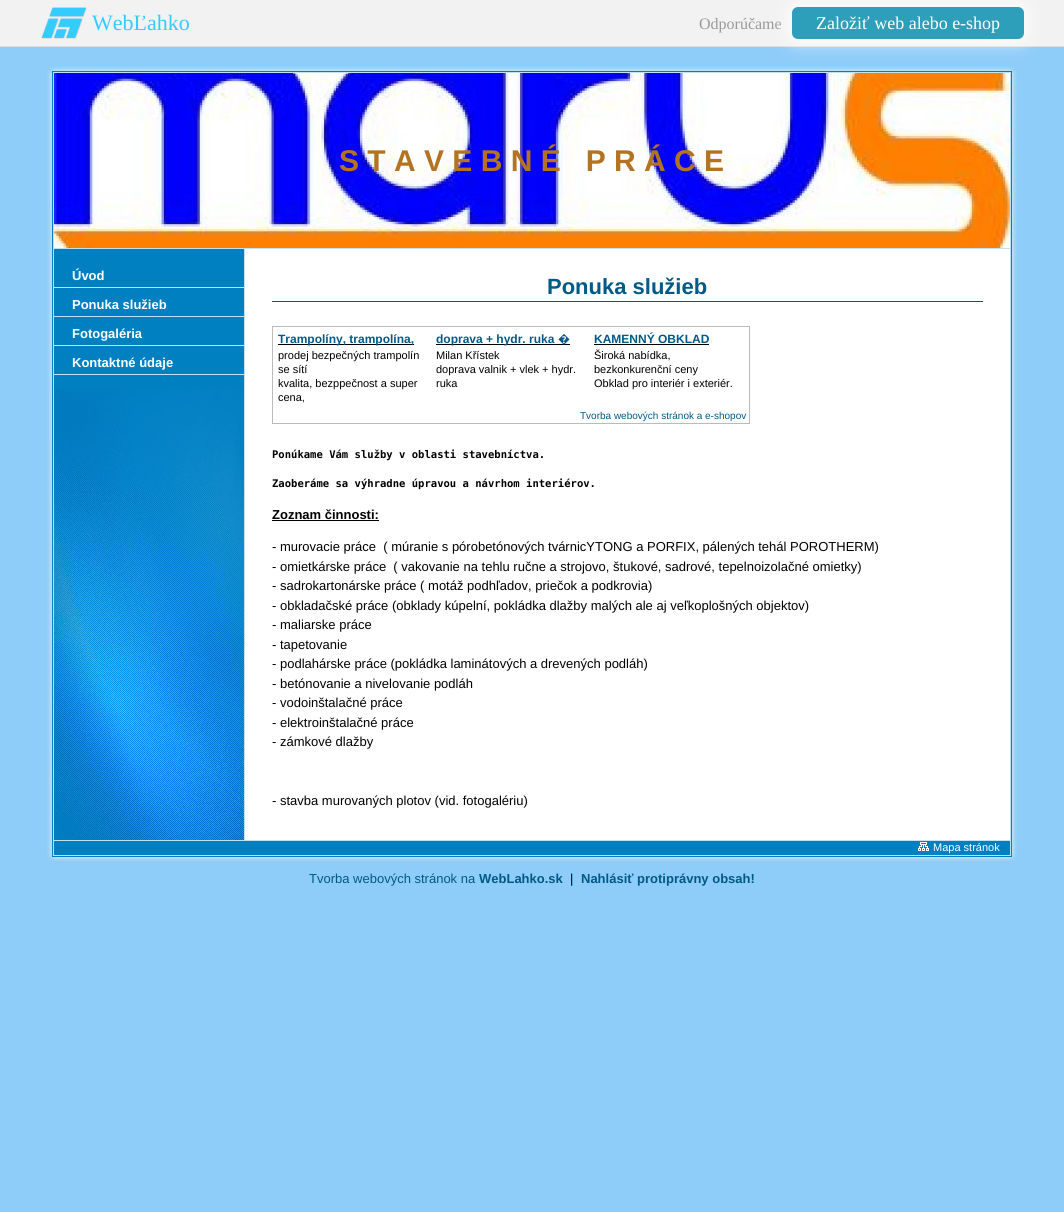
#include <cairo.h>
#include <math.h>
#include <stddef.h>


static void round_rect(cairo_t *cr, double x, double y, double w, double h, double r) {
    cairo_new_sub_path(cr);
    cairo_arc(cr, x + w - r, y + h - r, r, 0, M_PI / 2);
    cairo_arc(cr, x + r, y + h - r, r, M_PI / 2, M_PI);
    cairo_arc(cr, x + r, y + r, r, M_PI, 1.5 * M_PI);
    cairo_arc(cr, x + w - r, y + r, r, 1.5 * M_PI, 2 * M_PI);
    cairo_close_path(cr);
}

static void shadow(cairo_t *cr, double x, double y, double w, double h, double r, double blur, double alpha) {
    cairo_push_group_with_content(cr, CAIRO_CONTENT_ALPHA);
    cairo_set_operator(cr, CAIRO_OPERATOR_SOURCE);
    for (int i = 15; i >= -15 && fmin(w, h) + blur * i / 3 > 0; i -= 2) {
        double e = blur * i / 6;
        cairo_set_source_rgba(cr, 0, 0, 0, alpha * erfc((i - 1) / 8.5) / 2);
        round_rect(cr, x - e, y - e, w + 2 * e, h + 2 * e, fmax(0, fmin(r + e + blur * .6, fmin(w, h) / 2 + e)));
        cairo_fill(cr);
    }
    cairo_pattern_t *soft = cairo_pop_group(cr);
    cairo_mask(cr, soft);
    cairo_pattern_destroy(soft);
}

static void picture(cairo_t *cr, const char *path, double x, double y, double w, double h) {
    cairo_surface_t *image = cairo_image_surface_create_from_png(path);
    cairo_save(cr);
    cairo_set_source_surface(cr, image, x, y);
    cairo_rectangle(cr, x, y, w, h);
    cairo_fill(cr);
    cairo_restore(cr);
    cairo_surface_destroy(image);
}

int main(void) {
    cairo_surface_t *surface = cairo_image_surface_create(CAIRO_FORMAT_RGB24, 1064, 1212);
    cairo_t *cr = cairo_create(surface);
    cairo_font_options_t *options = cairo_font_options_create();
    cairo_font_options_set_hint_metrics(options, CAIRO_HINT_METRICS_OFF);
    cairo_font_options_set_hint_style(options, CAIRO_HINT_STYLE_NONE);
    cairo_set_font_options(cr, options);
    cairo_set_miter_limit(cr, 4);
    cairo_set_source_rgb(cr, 0.557, 0.8, 0.973);
    cairo_paint(cr);
    cairo_set_source_rgb(cr, 0.949, 0.949, 0.949);
    cairo_rectangle(cr, 0, 0, 1064, 46);
    cairo_fill(cr);
    cairo_set_source_rgb(cr, 0.867, 0.867, 0.867);
    cairo_rectangle(cr, 0, 46, 1064, 1);
    cairo_fill(cr);
    picture(cr, "img1.png", 41, 7, 46, 32);
    cairo_select_font_face(cr, "Liberation Serif", CAIRO_FONT_SLANT_NORMAL, CAIRO_FONT_WEIGHT_NORMAL);
    cairo_set_font_size(cr, 22);
    cairo_set_source_rgb(cr, 0.204, 0.796, 1);
    cairo_move_to(cr, 92, 30);
    cairo_show_text(cr, "WebĽahko");
    cairo_set_font_size(cr, 16);
    cairo_set_source_rgb(cr, 0.6, 0.6, 0.6);
    cairo_move_to(cr, 699, 29);
    cairo_show_text(cr, "Odporúčame");
    picture(cr, "img2.png", 48, 66, 968, 7);
    cairo_set_source_rgb(cr, 1, 1, 1);
    shadow(cr, 788, 3, 240, 40, 10, 8, 0.75);
    cairo_set_source_rgb(cr, 0.176, 0.624, 0.733);
    round_rect(cr, 792, 7, 232, 32, 6);
    cairo_fill(cr);
    cairo_set_font_size(cr, 18);
    cairo_set_source_rgb(cr, 1, 1, 1);
    cairo_move_to(cr, 816, 29);
    cairo_show_text(cr, "Založiť web alebo e-shop");
    picture(cr, "img3.png", 47, 73, 970, 782);
    picture(cr, "img4.png", 54, 73, 956, 175);
    cairo_set_source_rgb(cr, 0.749, 0.89, 0.945);
    cairo_rectangle(cr, 54, 248, 956, 1);
    cairo_fill(cr);
    cairo_select_font_face(cr, "Liberation Sans", CAIRO_FONT_SLANT_NORMAL, CAIRO_FONT_WEIGHT_BOLD);
    cairo_set_font_size(cr, 30);
    cairo_set_source_rgb(cr, 0.706, 0.451, 0.129);
    cairo_move_to(cr, 339, 171);
    cairo_show_text(cr, "S T A V E B N É   P R Á C E");
    picture(cr, "img5.png", 54, 389, 190, 451);
    cairo_set_source_rgb(cr, 0.749, 0.89, 0.945);
    cairo_rectangle(cr, 54, 287, 190, 1);
    cairo_fill(cr);
    cairo_set_font_size(cr, 13);
    cairo_set_source_rgb(cr, 1, 1, 1);
    cairo_move_to(cr, 72, 280);
    cairo_show_text(cr, "Úvod");
    cairo_set_source_rgb(cr, 0.749, 0.89, 0.945);
    cairo_rectangle(cr, 54, 316, 190, 1);
    cairo_fill(cr);
    cairo_set_source_rgb(cr, 1, 1, 1);
    cairo_move_to(cr, 72, 309);
    cairo_show_text(cr, "Ponuka služieb");
    cairo_set_source_rgb(cr, 0.749, 0.89, 0.945);
    cairo_rectangle(cr, 54, 345, 190, 1);
    cairo_fill(cr);
    cairo_set_source_rgb(cr, 1, 1, 1);
    cairo_move_to(cr, 72, 338);
    cairo_show_text(cr, "Fotogaléria");
    cairo_set_source_rgb(cr, 0.749, 0.89, 0.945);
    cairo_rectangle(cr, 54, 374, 190, 1);
    cairo_fill(cr);
    cairo_set_source_rgb(cr, 1, 1, 1);
    cairo_move_to(cr, 72, 367);
    cairo_show_text(cr, "Kontaktné údaje");
    cairo_rectangle(cr, 245, 249, 765, 591);
    cairo_fill(cr);
    cairo_set_source_rgb(cr, 0.749, 0.89, 0.945);
    cairo_rectangle(cr, 244, 249, 1, 591);
    cairo_fill(cr);
    cairo_set_source_rgb(cr, 0, 0.349, 0.529);
    cairo_rectangle(cr, 272, 301, 711, 1);
    cairo_fill(cr);
    cairo_set_font_size(cr, 22);
    cairo_move_to(cr, 547, 294);
    cairo_show_text(cr, "Ponuka služieb");
    cairo_rectangle(cr, 272.5, 326.5, 477, 97);
    cairo_set_source_rgb(cr, 0.733, 0.733, 0.733);
    cairo_set_line_width(cr, 1);
    cairo_stroke(cr);
    cairo_set_source_rgb(cr, 0, 0, 0);
    cairo_rectangle(cr, 278, 344, 136, 1);
    cairo_fill(cr);
    cairo_set_font_size(cr, 12);
    cairo_set_source_rgb(cr, 0, 0.349, 0.529);
    cairo_move_to(cr, 278, 343);
    cairo_show_text(cr, "Trampolíny, trampolína,");
    cairo_select_font_face(cr, "Liberation Sans", CAIRO_FONT_SLANT_NORMAL, CAIRO_FONT_WEIGHT_NORMAL);
    cairo_set_font_size(cr, 11);
    cairo_set_source_rgb(cr, 0, 0, 0);
    cairo_move_to(cr, 278, 359);
    cairo_show_text(cr, "prodej bezpečných trampolín");
    cairo_move_to(cr, 278, 373);
    cairo_show_text(cr, "se sítí");
    cairo_move_to(cr, 278, 387);
    cairo_show_text(cr, "kvalita, bezppečnost a super");
    cairo_move_to(cr, 278, 401);
    cairo_show_text(cr, "cena,");
    cairo_rectangle(cr, 436, 344, 134, 1);
    cairo_fill(cr);
    cairo_select_font_face(cr, "Liberation Sans", CAIRO_FONT_SLANT_NORMAL, CAIRO_FONT_WEIGHT_BOLD);
    cairo_set_font_size(cr, 12);
    cairo_set_source_rgb(cr, 0, 0.349, 0.529);
    cairo_move_to(cr, 436, 343);
    cairo_show_text(cr, "doprava + hydr. ruka");
    cairo_select_font_face(cr, "Noto Sans", CAIRO_FONT_SLANT_NORMAL, CAIRO_FONT_WEIGHT_BOLD);
    cairo_move_to(cr, 558, 343);
    cairo_show_text(cr, "�");
    cairo_select_font_face(cr, "Liberation Sans", CAIRO_FONT_SLANT_NORMAL, CAIRO_FONT_WEIGHT_NORMAL);
    cairo_set_font_size(cr, 11);
    cairo_set_source_rgb(cr, 0, 0, 0);
    cairo_move_to(cr, 436, 359);
    cairo_show_text(cr, "Milan Křístek");
    cairo_move_to(cr, 436, 373);
    cairo_show_text(cr, "doprava valnik + vlek + hydr.");
    cairo_move_to(cr, 436, 387);
    cairo_show_text(cr, "ruka");
    cairo_select_font_face(cr, "Liberation Sans", CAIRO_FONT_SLANT_NORMAL, CAIRO_FONT_WEIGHT_BOLD);
    cairo_set_font_size(cr, 12);
    cairo_set_source_rgb(cr, 0, 0.349, 0.529);
    cairo_move_to(cr, 594, 343);
    cairo_show_text(cr, "KAMENNÝ OBKLAD");
    cairo_set_source_rgb(cr, 0, 0, 0);
    cairo_rectangle(cr, 594, 344, 115, 1);
    cairo_fill(cr);
    cairo_select_font_face(cr, "Liberation Sans", CAIRO_FONT_SLANT_NORMAL, CAIRO_FONT_WEIGHT_NORMAL);
    cairo_set_font_size(cr, 11);
    cairo_move_to(cr, 594, 359);
    cairo_show_text(cr, "Široká nabídka,");
    cairo_move_to(cr, 594, 373);
    cairo_show_text(cr, "bezkonkurenční ceny");
    cairo_move_to(cr, 594, 387);
    cairo_show_text(cr, "Obklad pro interiér i exteriér.");
    cairo_set_font_size(cr, 10);
    cairo_set_source_rgb(cr, 0, 0.349, 0.529);
    cairo_move_to(cr, 580, 419);
    cairo_show_text(cr, "Tvorba webových stránok a e-shopov");
    cairo_select_font_face(cr, "DejaVu Sans Mono", CAIRO_FONT_SLANT_NORMAL, CAIRO_FONT_WEIGHT_BOLD);
    cairo_set_font_size(cr, 10.55);
    cairo_set_source_rgb(cr, 0, 0, 0);
    cairo_move_to(cr, 272, 458);
    cairo_show_text(cr, "Ponúkame Vám služby v oblasti stavebníctva.");
    cairo_move_to(cr, 272, 487);
    cairo_show_text(cr, "Zaoberáme sa výhradne úpravou a návrhom interiérov.");
    cairo_select_font_face(cr, "Liberation Sans", CAIRO_FONT_SLANT_NORMAL, CAIRO_FONT_WEIGHT_BOLD);
    cairo_set_font_size(cr, 13);
    cairo_move_to(cr, 272, 519);
    cairo_show_text(cr, "Zoznam činnosti:");
    cairo_rectangle(cr, 272, 520, 107, 1);
    cairo_fill(cr);
    cairo_select_font_face(cr, "Liberation Sans", CAIRO_FONT_SLANT_NORMAL, CAIRO_FONT_WEIGHT_NORMAL);
    cairo_move_to(cr, 272, 551);
    cairo_show_text(cr, "- murovacie práce  ( múranie s pórobetónových tvárnicYTONG a PORFIX, pálených tehál POROTHERM)");
    cairo_move_to(cr, 272, 571);
    cairo_show_text(cr, "- omietkárske práce  ( vakovanie na tehlu ručne a strojovo, štukové, sadrové, tepelnoizolačné omietky)");
    cairo_move_to(cr, 272, 590);
    cairo_show_text(cr, "- sadrokartonárske práce ( motáž podhľadov, priečok a podkrovia)");
    cairo_move_to(cr, 272, 610);
    cairo_show_text(cr, "- obkladačské práce (obklady kúpelní, pokládka dlažby malých ale aj veľkoplošných objektov)");
    cairo_move_to(cr, 272, 629);
    cairo_show_text(cr, "- maliarske práce");
    cairo_move_to(cr, 272, 649);
    cairo_show_text(cr, "- tapetovanie");
    cairo_move_to(cr, 272, 668);
    cairo_show_text(cr, "- podlahárske práce (pokládka laminátových a drevených podláh)");
    cairo_move_to(cr, 272, 688);
    cairo_show_text(cr, "- betónovanie a nivelovanie podláh");
    cairo_move_to(cr, 272, 707);
    cairo_show_text(cr, "- vodoinštalačné práce");
    cairo_move_to(cr, 272, 727);
    cairo_show_text(cr, "- elektroinštalačné práce");
    cairo_move_to(cr, 272, 746);
    cairo_show_text(cr, "- zámkové dlažby");
    cairo_move_to(cr, 272, 805);
    cairo_show_text(cr, "- stavba murovaných plotov (vid. fotogalériu)");
    cairo_set_source_rgb(cr, 0.749, 0.89, 0.945);
    cairo_rectangle(cr, 54, 840, 956, 1);
    cairo_fill(cr);
    picture(cr, "img6.png", 918, 842, 11, 9);
    cairo_set_font_size(cr, 11);
    cairo_set_source_rgb(cr, 1, 1, 1);
    cairo_move_to(cr, 933, 851);
    cairo_show_text(cr, "Mapa stránok");
    picture(cr, "img7.png", 48, 855, 968, 6);
    cairo_set_font_size(cr, 13);
    cairo_set_source_rgb(cr, 0, 0.349, 0.529);
    cairo_move_to(cr, 309, 883);
    cairo_show_text(cr, "Tvorba webových stránok na");
    cairo_select_font_face(cr, "Liberation Sans", CAIRO_FONT_SLANT_NORMAL, CAIRO_FONT_WEIGHT_BOLD);
    cairo_move_to(cr, 479, 883);
    cairo_show_text(cr, "WebLahko.sk");
    cairo_select_font_face(cr, "Liberation Sans", CAIRO_FONT_SLANT_NORMAL, CAIRO_FONT_WEIGHT_NORMAL);
    cairo_set_source_rgb(cr, 0, 0, 0);
    cairo_move_to(cr, 570, 883);
    cairo_show_text(cr, "|");
    cairo_select_font_face(cr, "Liberation Sans", CAIRO_FONT_SLANT_NORMAL, CAIRO_FONT_WEIGHT_BOLD);
    cairo_set_source_rgb(cr, 0, 0.349, 0.529);
    cairo_move_to(cr, 581, 883);
    cairo_show_text(cr, "Nahlásiť protiprávny obsah!");
    cairo_surface_write_to_png(surface, "page.png");
    cairo_font_options_destroy(options);
    cairo_destroy(cr);
    cairo_surface_destroy(surface);
    return 0;
}
